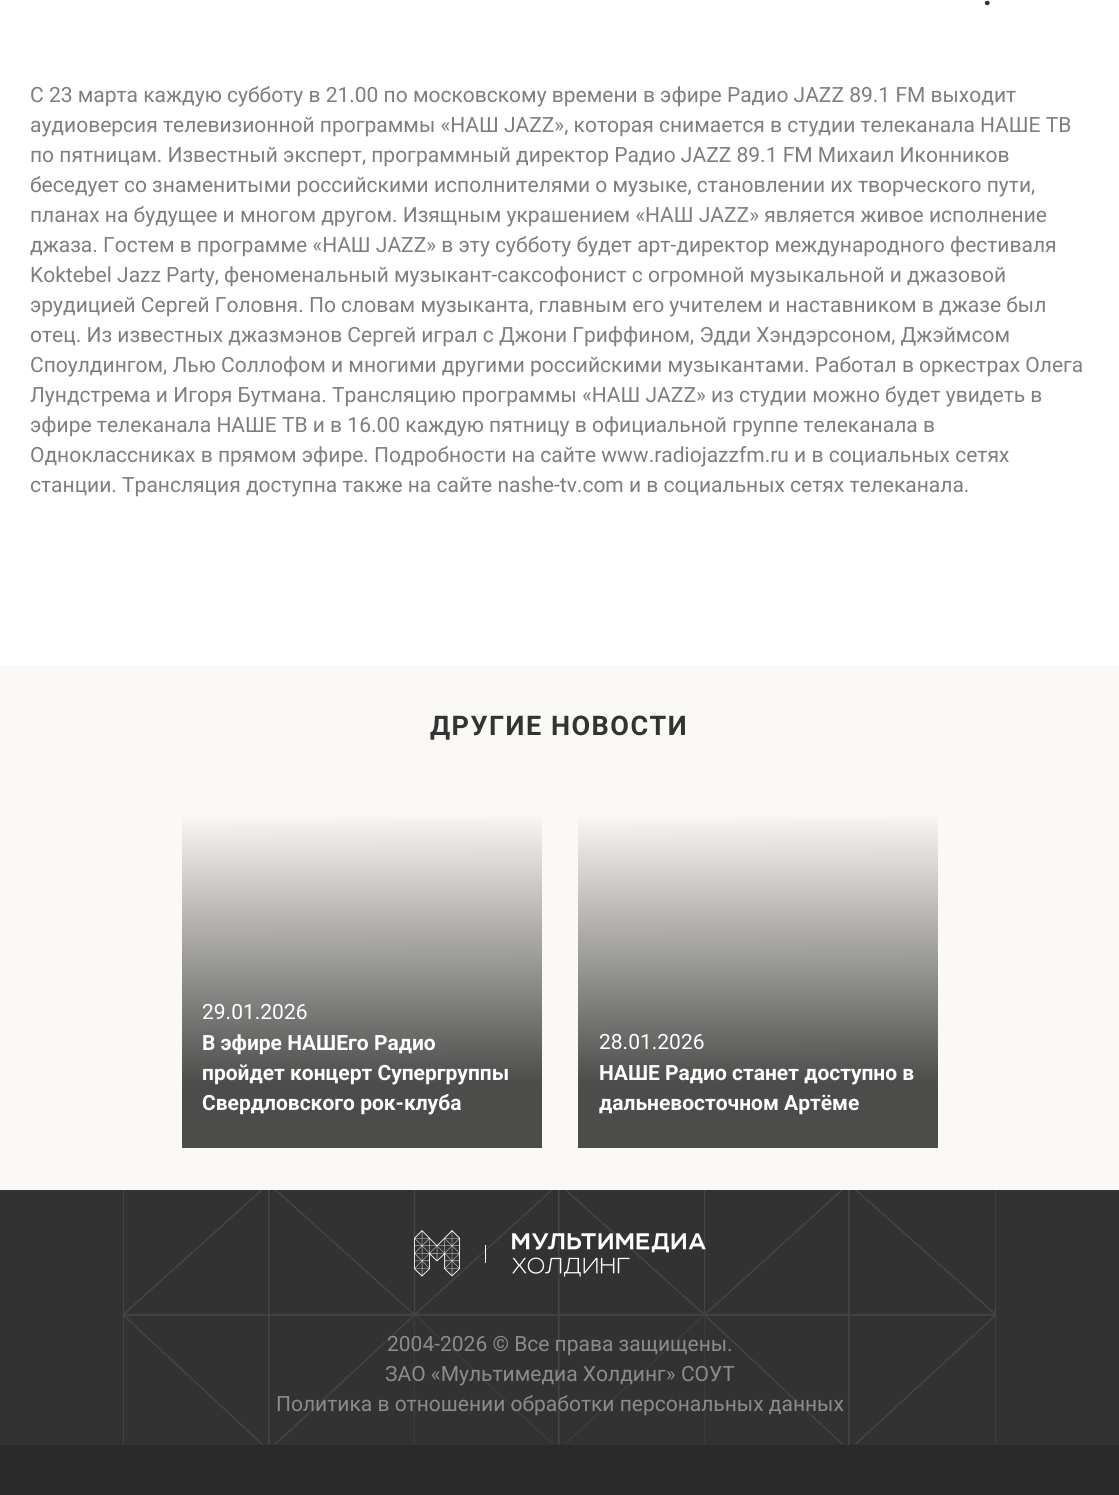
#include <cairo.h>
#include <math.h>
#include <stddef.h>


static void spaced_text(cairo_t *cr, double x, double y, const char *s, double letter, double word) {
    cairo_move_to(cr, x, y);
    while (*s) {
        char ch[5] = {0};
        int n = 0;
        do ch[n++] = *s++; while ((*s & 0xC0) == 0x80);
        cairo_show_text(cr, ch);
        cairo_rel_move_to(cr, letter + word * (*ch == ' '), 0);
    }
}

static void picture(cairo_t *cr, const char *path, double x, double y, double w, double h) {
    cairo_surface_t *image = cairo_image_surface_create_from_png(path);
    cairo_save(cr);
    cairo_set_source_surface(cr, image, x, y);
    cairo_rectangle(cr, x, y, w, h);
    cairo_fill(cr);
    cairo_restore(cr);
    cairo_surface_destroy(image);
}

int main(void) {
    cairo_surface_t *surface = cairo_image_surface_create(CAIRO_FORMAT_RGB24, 1119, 1495);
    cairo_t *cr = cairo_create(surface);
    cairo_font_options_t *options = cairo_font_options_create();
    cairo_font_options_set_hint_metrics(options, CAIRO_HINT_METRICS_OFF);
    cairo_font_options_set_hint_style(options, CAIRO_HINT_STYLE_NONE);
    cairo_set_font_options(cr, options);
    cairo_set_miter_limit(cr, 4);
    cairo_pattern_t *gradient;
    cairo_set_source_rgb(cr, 1, 1, 1);
    cairo_paint(cr);
    cairo_select_font_face(cr, "Roboto", CAIRO_FONT_SLANT_NORMAL, CAIRO_FONT_WEIGHT_BOLD);
    cairo_set_font_size(cr, 30);
    cairo_set_source_rgb(cr, 0.2, 0.2, 0.2);
    spaced_text(cr, 983, 5, ".", 1.5, 0);
    cairo_select_font_face(cr, "Roboto", CAIRO_FONT_SLANT_NORMAL, CAIRO_FONT_WEIGHT_NORMAL);
    cairo_set_font_size(cr, 21);
    cairo_set_source_rgb(cr, 0.498, 0.494, 0.486);
    cairo_move_to(cr, 30, 102);
    cairo_show_text(cr, "C 23 марта каждую субботу в 21.00 по московскому времени в эфире Радио JAZZ 89.1 FM выходит");
    cairo_move_to(cr, 30, 132);
    cairo_show_text(cr, "аудиоверсия телевизионной программы «НАШ JAZZ», которая снимается в студии телеканала НАШЕ ТВ");
    cairo_move_to(cr, 30, 162);
    cairo_show_text(cr, "по пятницам. Известный эксперт, программный директор Радио JAZZ 89.1 FM Михаил Иконников");
    cairo_move_to(cr, 30, 192);
    cairo_show_text(cr, "беседует со знаменитыми российскими исполнителями о музыке, становлении их творческого пути,");
    cairo_move_to(cr, 30, 222);
    cairo_show_text(cr, "планах на будущее и многом другом. Изящным украшением «НАШ JAZZ» является живое исполнение");
    cairo_move_to(cr, 30, 252);
    cairo_show_text(cr, "джаза. Гостем в программе «НАШ JAZZ» в эту субботу будет арт-директор международного фестиваля");
    cairo_move_to(cr, 30, 282);
    cairo_show_text(cr, "Koktebel Jazz Party, феноменальный музыкант-саксофонист с огромной музыкальной и джазовой");
    cairo_move_to(cr, 30, 312);
    cairo_show_text(cr, "эрудицией Сергей Головня. По словам музыканта, главным его учителем и наставником в джазе был");
    cairo_move_to(cr, 30, 342);
    cairo_show_text(cr, "отец. Из известных джазмэнов Сергей играл с Джони Гриффином, Эдди Хэндэрсоном, Джэймсом");
    cairo_move_to(cr, 30, 372);
    cairo_show_text(cr, "Споулдингом, Лью Соллофом и многими другими российскими музыкантами. Работал в оркестрах Олега");
    cairo_move_to(cr, 30, 402);
    cairo_show_text(cr, "Лундстрема и Игоря Бутмана. Трансляцию программы «НАШ JAZZ» из студии можно будет увидеть в");
    cairo_move_to(cr, 30, 432);
    cairo_show_text(cr, "эфире телеканала НАШЕ ТВ и в 16.00 каждую пятницу в официальной группе телеканала в");
    cairo_move_to(cr, 30, 462);
    cairo_show_text(cr, "Одноклассниках в прямом эфире. Подробности на сайте www.radiojazzfm.ru и в социальных сетях");
    cairo_move_to(cr, 30, 492);
    cairo_show_text(cr, "станции. Трансляция доступна также на сайте nashe-tv.com и в социальных сетях телеканала.");
    cairo_set_source_rgb(cr, 0.98, 0.973, 0.961);
    cairo_rectangle(cr, 0, 665, 1119, 525);
    cairo_fill(cr);
    cairo_select_font_face(cr, "Roboto", CAIRO_FONT_SLANT_NORMAL, CAIRO_FONT_WEIGHT_BOLD);
    cairo_set_font_size(cr, 27);
    cairo_set_source_rgb(cr, 0.2, 0.2, 0.2);
    spaced_text(cr, 430, 735, "ДРУГИЕ НОВОСТИ", 1.5, 0);
    gradient = cairo_pattern_create_linear(362, 1148, 361, 788);
    cairo_pattern_add_color_stop_rgba(gradient, 0.18, 0.298, 0.298, 0.294, 1);
    cairo_pattern_add_color_stop_rgba(gradient, 0.93, 0.98, 0.973, 0.961, 1);
    cairo_set_source(cr, gradient);
    cairo_pattern_destroy(gradient);
    cairo_rectangle(cr, 182, 817, 360, 331);
    cairo_fill(cr);
    cairo_select_font_face(cr, "Roboto", CAIRO_FONT_SLANT_NORMAL, CAIRO_FONT_WEIGHT_NORMAL);
    cairo_set_font_size(cr, 21);
    cairo_set_source_rgb(cr, 1, 1, 1);
    cairo_move_to(cr, 202, 1019);
    cairo_show_text(cr, "29.01.2026");
    cairo_select_font_face(cr, "Roboto", CAIRO_FONT_SLANT_NORMAL, CAIRO_FONT_WEIGHT_BOLD);
    cairo_move_to(cr, 202, 1050);
    cairo_show_text(cr, "В эфире НАШЕго Радио");
    cairo_move_to(cr, 202, 1080);
    cairo_show_text(cr, "пройдет концерт Супергруппы");
    cairo_move_to(cr, 202, 1110);
    cairo_show_text(cr, "Свердловского рок-клуба");
    gradient = cairo_pattern_create_linear(758, 1148, 757, 788);
    cairo_pattern_add_color_stop_rgba(gradient, 0.18, 0.298, 0.298, 0.294, 1);
    cairo_pattern_add_color_stop_rgba(gradient, 0.93, 0.98, 0.973, 0.961, 1);
    cairo_set_source(cr, gradient);
    cairo_pattern_destroy(gradient);
    cairo_rectangle(cr, 578, 817, 360, 331);
    cairo_fill(cr);
    cairo_select_font_face(cr, "Roboto", CAIRO_FONT_SLANT_NORMAL, CAIRO_FONT_WEIGHT_NORMAL);
    cairo_set_source_rgb(cr, 1, 1, 1);
    cairo_move_to(cr, 599, 1049);
    cairo_show_text(cr, "28.01.2026");
    cairo_select_font_face(cr, "Roboto", CAIRO_FONT_SLANT_NORMAL, CAIRO_FONT_WEIGHT_BOLD);
    cairo_move_to(cr, 599, 1080);
    cairo_show_text(cr, "НАШЕ Радио станет доступно в");
    cairo_move_to(cr, 599, 1110);
    cairo_show_text(cr, "дальневосточном Артёме");
    cairo_set_source_rgb(cr, 0.165, 0.165, 0.165);
    cairo_rectangle(cr, 0, 1445, 1119, 50);
    cairo_fill(cr);
    cairo_set_source_rgb(cr, 0.196, 0.196, 0.196);
    cairo_rectangle(cr, 0, 1190, 1119, 255);
    cairo_fill(cr);
    picture(cr, "img1.png", 123, 1190, 873, 255);
    picture(cr, "img2.png", 414, 1230, 292, 47);
    cairo_select_font_face(cr, "Roboto", CAIRO_FONT_SLANT_NORMAL, CAIRO_FONT_WEIGHT_NORMAL);
    cairo_set_source_rgb(cr, 0.545, 0.545, 0.545);
    cairo_move_to(cr, 387, 1351);
    cairo_show_text(cr, "2004-2026 © Все права защищены.");
    cairo_move_to(cr, 385, 1381);
    cairo_show_text(cr, "ЗАО «Мультимедиа Холдинг» СОУТ");
    cairo_move_to(cr, 276, 1411);
    cairo_show_text(cr, "Политика в отношении обработки персональных данных");
    cairo_surface_write_to_png(surface, "page.png");
    cairo_font_options_destroy(options);
    cairo_destroy(cr);
    cairo_surface_destroy(surface);
    return 0;
}
